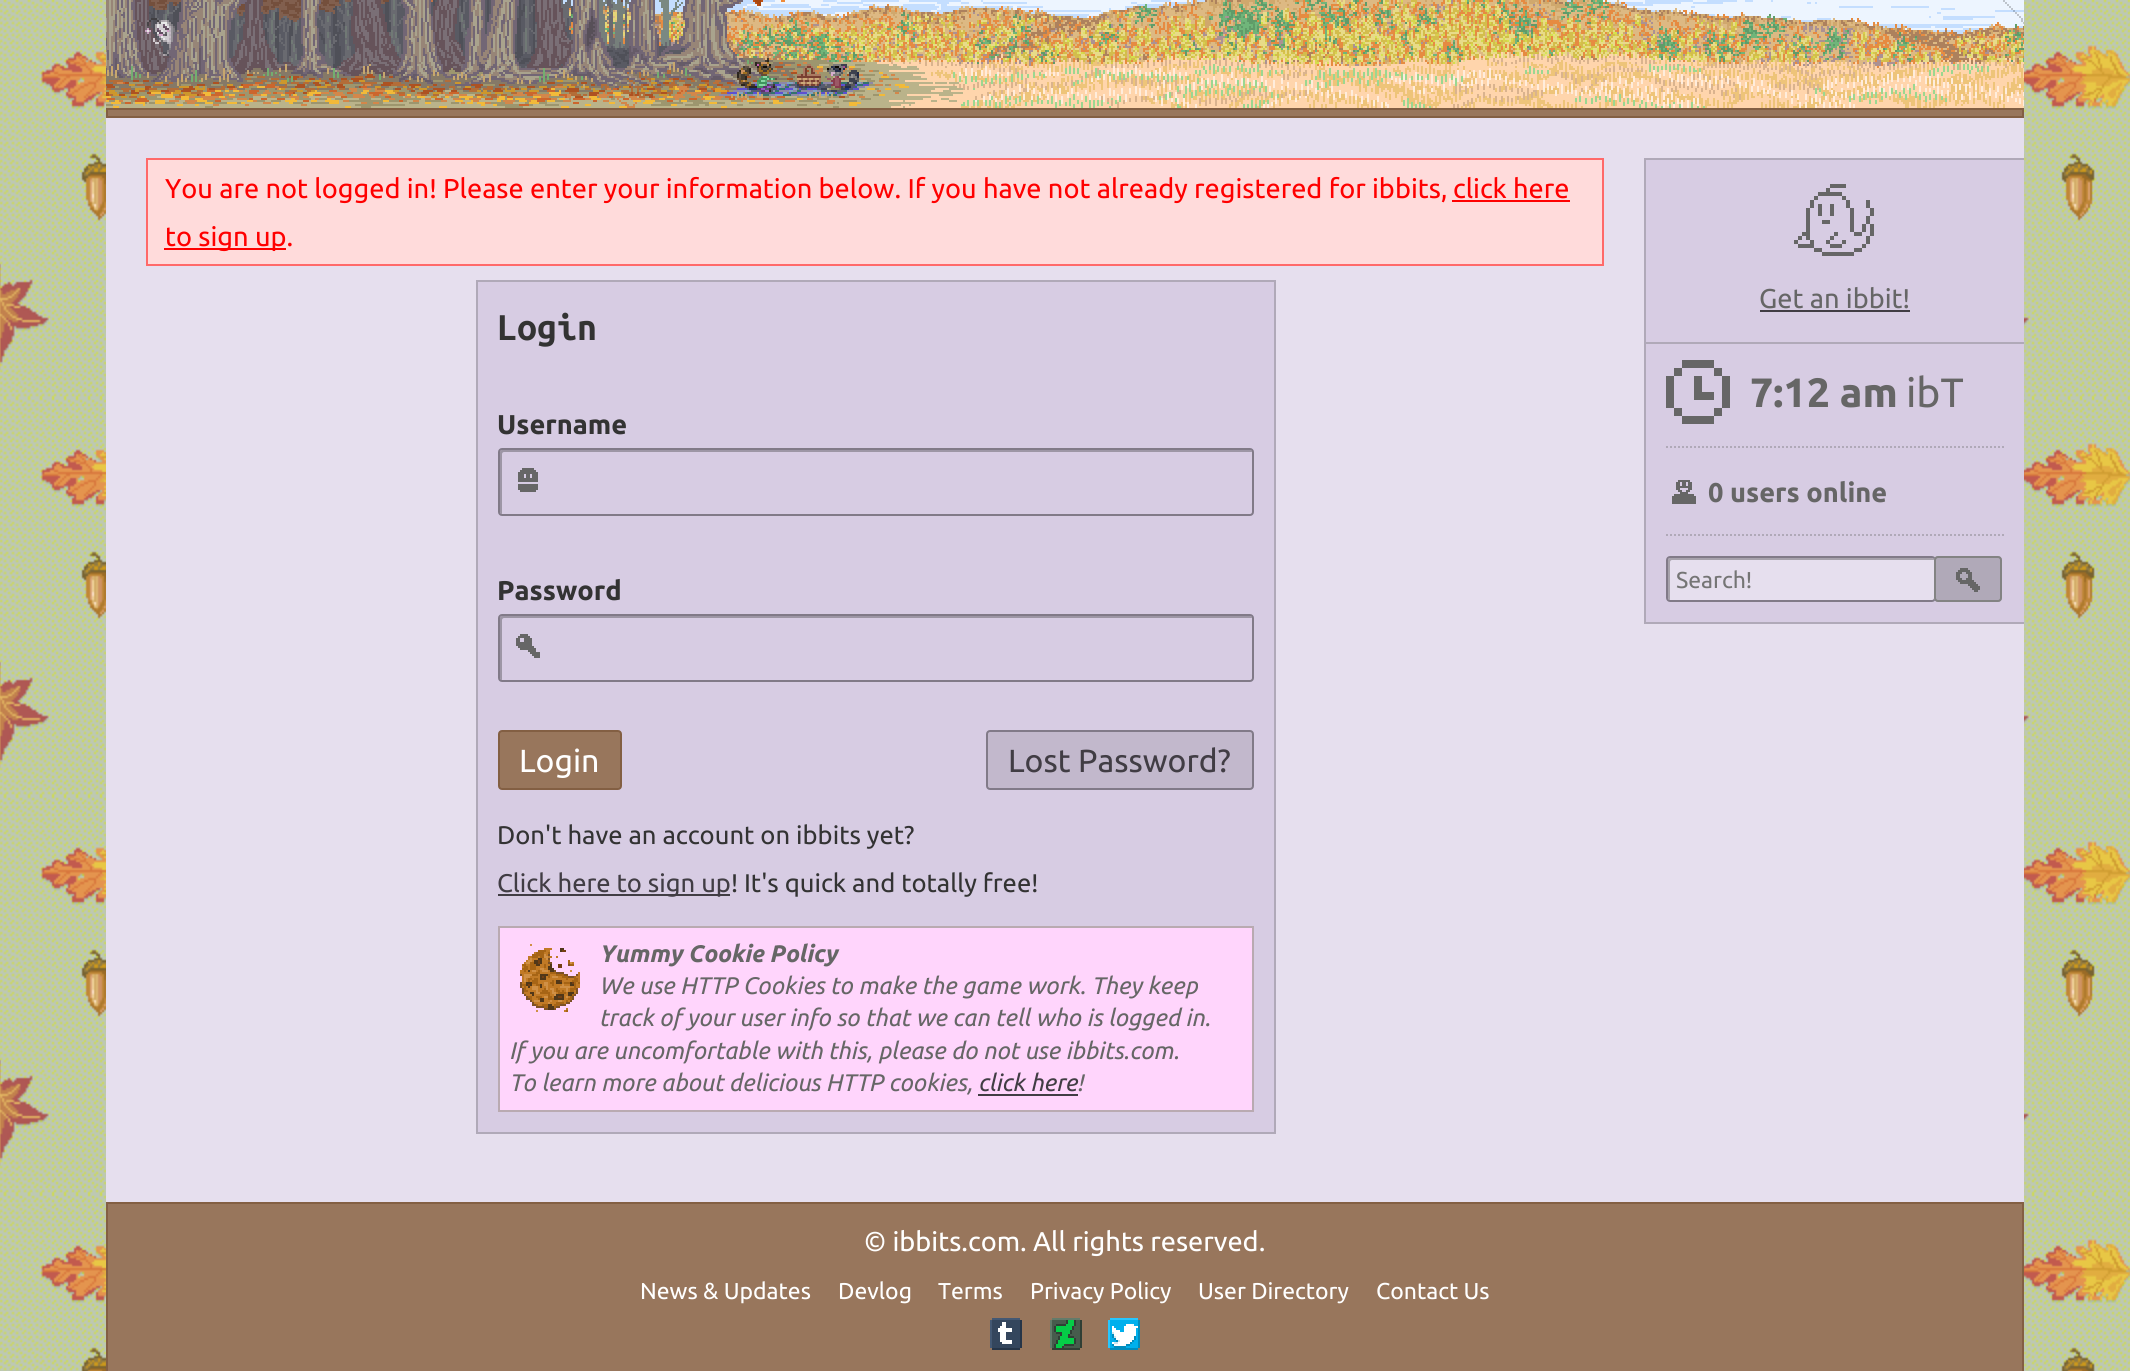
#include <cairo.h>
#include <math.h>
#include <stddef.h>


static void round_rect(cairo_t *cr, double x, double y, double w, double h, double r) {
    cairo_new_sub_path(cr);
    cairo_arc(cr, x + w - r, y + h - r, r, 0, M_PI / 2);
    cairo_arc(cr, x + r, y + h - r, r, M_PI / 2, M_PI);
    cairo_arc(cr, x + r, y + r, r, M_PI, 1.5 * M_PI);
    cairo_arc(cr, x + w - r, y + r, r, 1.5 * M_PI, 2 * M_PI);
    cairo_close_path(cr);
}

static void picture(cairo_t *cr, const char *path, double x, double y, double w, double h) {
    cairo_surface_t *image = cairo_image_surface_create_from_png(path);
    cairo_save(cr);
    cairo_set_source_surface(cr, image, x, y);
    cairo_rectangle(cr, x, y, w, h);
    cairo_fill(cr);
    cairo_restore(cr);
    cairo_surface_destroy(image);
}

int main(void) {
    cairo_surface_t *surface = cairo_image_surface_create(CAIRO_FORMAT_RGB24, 2130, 1371);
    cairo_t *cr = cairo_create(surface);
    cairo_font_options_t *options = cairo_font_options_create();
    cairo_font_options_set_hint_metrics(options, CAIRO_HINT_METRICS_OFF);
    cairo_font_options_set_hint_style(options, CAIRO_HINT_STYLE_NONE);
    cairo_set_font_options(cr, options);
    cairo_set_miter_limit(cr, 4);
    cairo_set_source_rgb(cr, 1, 1, 1);
    cairo_paint(cr);
    picture(cr, "img1.png", 0, 0, 2130, 1371);
    picture(cr, "img2.png", 106, 0, 1918, 108);
    cairo_set_source_rgb(cr, 0.596, 0.463, 0.361);
    cairo_rectangle(cr, 107, 109, 1916, 8);
    cairo_fill_preserve(cr);
    cairo_set_source_rgb(cr, 0.514, 0.373, 0.263);
    cairo_stroke(cr);
    cairo_set_source_rgb(cr, 0.902, 0.875, 0.933);
    cairo_rectangle(cr, 106, 118, 1918, 1084);
    cairo_fill(cr);
    cairo_set_source_rgb(cr, 1, 0.859, 0.859);
    cairo_rectangle(cr, 147, 159, 1456, 106);
    cairo_fill_preserve(cr);
    cairo_set_source_rgb(cr, 1, 0.412, 0.412);
    cairo_stroke(cr);
    cairo_select_font_face(cr, "Ubuntu", CAIRO_FONT_SLANT_NORMAL, CAIRO_FONT_WEIGHT_NORMAL);
    cairo_set_font_size(cr, 27.2);
    cairo_set_source_rgb(cr, 1, 0, 0);
    cairo_move_to(cr, 165, 198);
    cairo_show_text(cr, "You are not logged in! Please enter your information below. If you have not already registered for ibbits,");
    cairo_move_to(cr, 1453, 198);
    cairo_show_text(cr, "click here");
    cairo_rectangle(cr, 1452, 200, 118, 2);
    cairo_fill(cr);
    cairo_rectangle(cr, 164, 248, 122, 2);
    cairo_fill(cr);
    cairo_move_to(cr, 165, 246);
    cairo_show_text(cr, "to sign up.");
    cairo_set_source_rgb(cr, 0.843, 0.8, 0.89);
    cairo_rectangle(cr, 477, 281, 798, 852);
    cairo_fill_preserve(cr);
    cairo_set_source_rgb(cr, 0.69, 0.663, 0.722);
    cairo_stroke(cr);
    cairo_select_font_face(cr, "Ubuntu Mono", CAIRO_FONT_SLANT_NORMAL, CAIRO_FONT_WEIGHT_BOLD);
    cairo_set_font_size(cr, 40);
    cairo_set_source_rgb(cr, 0.2, 0.2, 0.2);
    cairo_move_to(cr, 497, 340);
    cairo_show_text(cr, "Login");
    cairo_select_font_face(cr, "Ubuntu", CAIRO_FONT_SLANT_NORMAL, CAIRO_FONT_WEIGHT_BOLD);
    cairo_set_font_size(cr, 27.2);
    cairo_move_to(cr, 497, 434);
    cairo_show_text(cr, "Username");
    picture(cr, "img3.png", 518, 468, 20, 24);
    cairo_set_source_rgb(cr, 0.616, 0.588, 0.647);
    cairo_new_path(cr);
    cairo_move_to(cr, 504, 452);
    cairo_line_to(cr, 1252, 452);
    cairo_curve_to(cr, 1252, 451, 1251, 450, 1250, 450);
    cairo_line_to(cr, 502, 450);
    cairo_curve_to(cr, 501, 450, 500, 451, 500, 452);
    cairo_line_to(cr, 500, 512);
    cairo_curve_to(cr, 500, 513, 501, 514, 502, 514);
    cairo_line_to(cr, 502, 454);
    cairo_curve_to(cr, 502, 453, 503, 452, 504, 452);
    cairo_close_path(cr);
    cairo_fill(cr);
    round_rect(cr, 499, 449, 754, 66, 3);
    cairo_set_source_rgb(cr, 0.506, 0.478, 0.533);
    cairo_stroke(cr);
    cairo_set_source_rgb(cr, 0.2, 0.2, 0.2);
    cairo_move_to(cr, 497, 600);
    cairo_show_text(cr, "Password");
    picture(cr, "img4.png", 516, 634, 24, 24);
    cairo_set_source_rgb(cr, 0.616, 0.588, 0.647);
    cairo_new_path(cr);
    cairo_move_to(cr, 504, 618);
    cairo_line_to(cr, 1252, 618);
    cairo_curve_to(cr, 1252, 617, 1251, 616, 1250, 616);
    cairo_line_to(cr, 502, 616);
    cairo_curve_to(cr, 501, 616, 500, 617, 500, 618);
    cairo_line_to(cr, 500, 678);
    cairo_curve_to(cr, 500, 679, 501, 680, 502, 680);
    cairo_line_to(cr, 502, 620);
    cairo_curve_to(cr, 502, 619, 503, 618, 504, 618);
    cairo_close_path(cr);
    cairo_fill(cr);
    round_rect(cr, 499, 615, 754, 66, 3);
    cairo_set_source_rgb(cr, 0.506, 0.478, 0.533);
    cairo_stroke(cr);
    cairo_set_source_rgb(cr, 0.596, 0.463, 0.361);
    round_rect(cr, 499, 731, 122, 58, 3);
    cairo_fill_preserve(cr);
    cairo_set_source_rgb(cr, 0.514, 0.373, 0.263);
    cairo_stroke(cr);
    cairo_select_font_face(cr, "Ubuntu", CAIRO_FONT_SLANT_NORMAL, CAIRO_FONT_WEIGHT_NORMAL);
    cairo_set_font_size(cr, 32);
    cairo_set_source_rgb(cr, 1, 1, 1);
    cairo_move_to(cr, 519, 772);
    cairo_show_text(cr, "Login");
    cairo_set_source_rgb(cr, 0.761, 0.722, 0.8);
    round_rect(cr, 987, 731, 266, 58, 3);
    cairo_fill_preserve(cr);
    cairo_set_source_rgb(cr, 0.506, 0.478, 0.533);
    cairo_stroke(cr);
    cairo_set_source_rgb(cr, 0.255, 0.239, 0.267);
    cairo_move_to(cr, 1008, 772);
    cairo_show_text(cr, "Lost Password?");
    cairo_set_font_size(cr, 25.6);
    cairo_set_source_rgb(cr, 0.2, 0.2, 0.2);
    cairo_move_to(cr, 497, 844);
    cairo_show_text(cr, "Don't have an account on ibbits yet?");
    cairo_set_source_rgb(cr, 0.255, 0.239, 0.267);
    cairo_rectangle(cr, 498, 894, 232, 2);
    cairo_fill(cr);
    cairo_move_to(cr, 497, 892);
    cairo_show_text(cr, "Click here to sign up");
    cairo_set_source_rgb(cr, 0.2, 0.2, 0.2);
    cairo_move_to(cr, 731, 892);
    cairo_show_text(cr, "! It's quick and totally free!");
    cairo_set_source_rgb(cr, 1, 0.835, 0.988);
    cairo_rectangle(cr, 499, 927, 754, 184);
    cairo_fill_preserve(cr);
    cairo_set_source_rgb(cr, 0.725, 0.667, 0.694);
    cairo_stroke(cr);
    picture(cr, "img5.png", 520, 944, 60, 68);
    cairo_select_font_face(cr, "Ubuntu", CAIRO_FONT_SLANT_ITALIC, CAIRO_FONT_WEIGHT_BOLD);
    cairo_set_font_size(cr, 24);
    cairo_set_source_rgb(cr, 0.4, 0.4, 0.4);
    cairo_move_to(cr, 599, 962);
    cairo_show_text(cr, "Yummy Cookie Policy");
    cairo_select_font_face(cr, "Ubuntu", CAIRO_FONT_SLANT_ITALIC, CAIRO_FONT_WEIGHT_NORMAL);
    cairo_move_to(cr, 599, 994);
    cairo_show_text(cr, "We use HTTP Cookies to make the game work. They keep");
    cairo_move_to(cr, 599, 1026);
    cairo_show_text(cr, "track of your user info so that we can tell who is logged in.");
    cairo_move_to(cr, 509, 1059);
    cairo_show_text(cr, "If you are uncomfortable with this, please do not use ibbits.com.");
    cairo_move_to(cr, 509, 1091);
    cairo_show_text(cr, "To learn more about delicious HTTP cookies,");
    cairo_set_source_rgb(cr, 0.255, 0.239, 0.267);
    cairo_move_to(cr, 978, 1091);
    cairo_show_text(cr, "click here");
    cairo_rectangle(cr, 978, 1094, 100, 2);
    cairo_fill(cr);
    cairo_set_source_rgb(cr, 0.4, 0.4, 0.4);
    cairo_move_to(cr, 1077, 1091);
    cairo_show_text(cr, "!");
    cairo_set_source_rgb(cr, 0.843, 0.8, 0.89);
    cairo_rectangle(cr, 1646, 160, 378, 182);
    cairo_fill(cr);
    cairo_set_source_rgb(cr, 0.69, 0.663, 0.722);
    cairo_rectangle(cr, 1644, 158, 380, 2);
    cairo_fill(cr);
    cairo_rectangle(cr, 1644, 158, 2, 186);
    cairo_fill(cr);
    picture(cr, "img6.png", 1794, 184, 80, 72);
    cairo_select_font_face(cr, "Ubuntu", CAIRO_FONT_SLANT_NORMAL, CAIRO_FONT_WEIGHT_NORMAL);
    cairo_set_font_size(cr, 27.2);
    cairo_set_source_rgb(cr, 0.4, 0.4, 0.4);
    cairo_move_to(cr, 1759, 308);
    cairo_show_text(cr, "Get an ibbit!");
    cairo_set_source_rgb(cr, 0.255, 0.239, 0.267);
    cairo_rectangle(cr, 1760, 310, 150, 2);
    cairo_fill(cr);
    cairo_set_source_rgb(cr, 0.843, 0.8, 0.89);
    cairo_rectangle(cr, 1646, 344, 378, 278);
    cairo_fill(cr);
    cairo_set_source_rgb(cr, 0.69, 0.663, 0.722);
    cairo_rectangle(cr, 1644, 342, 380, 2);
    cairo_fill(cr);
    cairo_rectangle(cr, 1644, 622, 380, 2);
    cairo_fill(cr);
    cairo_rectangle(cr, 1644, 342, 2, 282);
    cairo_fill(cr);
    picture(cr, "img7.png", 1666, 360, 64, 64);
    cairo_select_font_face(cr, "Ubuntu", CAIRO_FONT_SLANT_NORMAL, CAIRO_FONT_WEIGHT_BOLD);
    cairo_set_font_size(cr, 41);
    cairo_set_source_rgb(cr, 0.4, 0.4, 0.4);
    cairo_move_to(cr, 1750, 407);
    cairo_show_text(cr, "7:12 am");
    cairo_select_font_face(cr, "Ubuntu", CAIRO_FONT_SLANT_NORMAL, CAIRO_FONT_WEIGHT_NORMAL);
    cairo_move_to(cr, 1906, 407);
    cairo_show_text(cr, "ibT");
    cairo_new_path(cr);
    cairo_move_to(cr, 1666, 447);
    cairo_line_to(cr, 2004, 447);
    cairo_set_source_rgb(cr, 0.69, 0.663, 0.722);
    cairo_set_dash(cr, (double[]){2, 2}, 2, 0);
    cairo_stroke(cr);
    picture(cr, "img8.png", 1672, 480, 24, 24);
    cairo_select_font_face(cr, "Ubuntu", CAIRO_FONT_SLANT_NORMAL, CAIRO_FONT_WEIGHT_BOLD);
    cairo_set_font_size(cr, 27.2);
    cairo_set_source_rgb(cr, 0.4, 0.4, 0.4);
    cairo_move_to(cr, 1708, 502);
    cairo_show_text(cr, "0 users online");
    cairo_new_path(cr);
    cairo_move_to(cr, 1666, 535);
    cairo_line_to(cr, 2004, 535);
    cairo_set_source_rgb(cr, 0.69, 0.663, 0.722);
    cairo_stroke(cr);
    cairo_set_source_rgb(cr, 0.902, 0.875, 0.933);
    round_rect(cr, 1666, 556, 270, 46, 4);
    cairo_fill(cr);
    cairo_set_source_rgb(cr, 0.655, 0.635, 0.675);
    cairo_new_path(cr);
    cairo_move_to(cr, 1672, 560);
    cairo_line_to(cr, 1934, 560);
    cairo_curve_to(cr, 1934, 559, 1933, 558, 1932, 558);
    cairo_line_to(cr, 1670, 558);
    cairo_curve_to(cr, 1669, 558, 1668, 559, 1668, 560);
    cairo_line_to(cr, 1668, 598);
    cairo_curve_to(cr, 1668, 599, 1669, 600, 1670, 600);
    cairo_line_to(cr, 1670, 562);
    cairo_curve_to(cr, 1670, 561, 1671, 560, 1672, 560);
    cairo_close_path(cr);
    cairo_fill(cr);
    round_rect(cr, 1667, 557, 268, 44, 3);
    cairo_set_source_rgb(cr, 0.506, 0.478, 0.533);
    cairo_set_dash(cr, NULL, 0, 0);
    cairo_stroke(cr);
    cairo_select_font_face(cr, "Ubuntu", CAIRO_FONT_SLANT_NORMAL, CAIRO_FONT_WEIGHT_NORMAL);
    cairo_set_font_size(cr, 23);
    cairo_set_source_rgb(cr, 0.459, 0.459, 0.459);
    cairo_move_to(cr, 1676, 588);
    cairo_show_text(cr, "Search!");
    cairo_set_source_rgb(cr, 0.69, 0.663, 0.722);
    round_rect(cr, 1934, 556, 68, 46, 4);
    cairo_fill(cr);
    picture(cr, "img9.png", 1956, 568, 24, 24);
    round_rect(cr, 1935, 557, 66, 44, 3);
    cairo_set_source_rgb(cr, 0.514, 0.514, 0.514);
    cairo_stroke(cr);
    cairo_set_source_rgb(cr, 0.596, 0.463, 0.361);
    cairo_rectangle(cr, 107, 1203, 1916, 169);
    cairo_fill_preserve(cr);
    cairo_set_source_rgb(cr, 0.514, 0.373, 0.263);
    cairo_stroke(cr);
    cairo_set_font_size(cr, 27.2);
    cairo_set_source_rgb(cr, 1, 1, 1);
    cairo_move_to(cr, 864, 1251);
    cairo_show_text(cr, "© ibbits.com. All rights reserved.");
    cairo_set_font_size(cr, 23);
    cairo_move_to(cr, 640, 1299);
    cairo_show_text(cr, "News & Updates");
    cairo_move_to(cr, 838, 1299);
    cairo_show_text(cr, "Devlog");
    cairo_move_to(cr, 938, 1299);
    cairo_show_text(cr, "Terms");
    cairo_move_to(cr, 1030, 1299);
    cairo_show_text(cr, "Privacy Policy");
    cairo_move_to(cr, 1198, 1299);
    cairo_show_text(cr, "User Directory");
    cairo_move_to(cr, 1376, 1299);
    cairo_show_text(cr, "Contact Us");
    picture(cr, "img10.png", 990, 1318, 32, 32);
    picture(cr, "img11.png", 1050, 1318, 32, 32);
    picture(cr, "img12.png", 1108, 1318, 32, 32);
    cairo_surface_write_to_png(surface, "page.png");
    cairo_font_options_destroy(options);
    cairo_destroy(cr);
    cairo_surface_destroy(surface);
    return 0;
}
